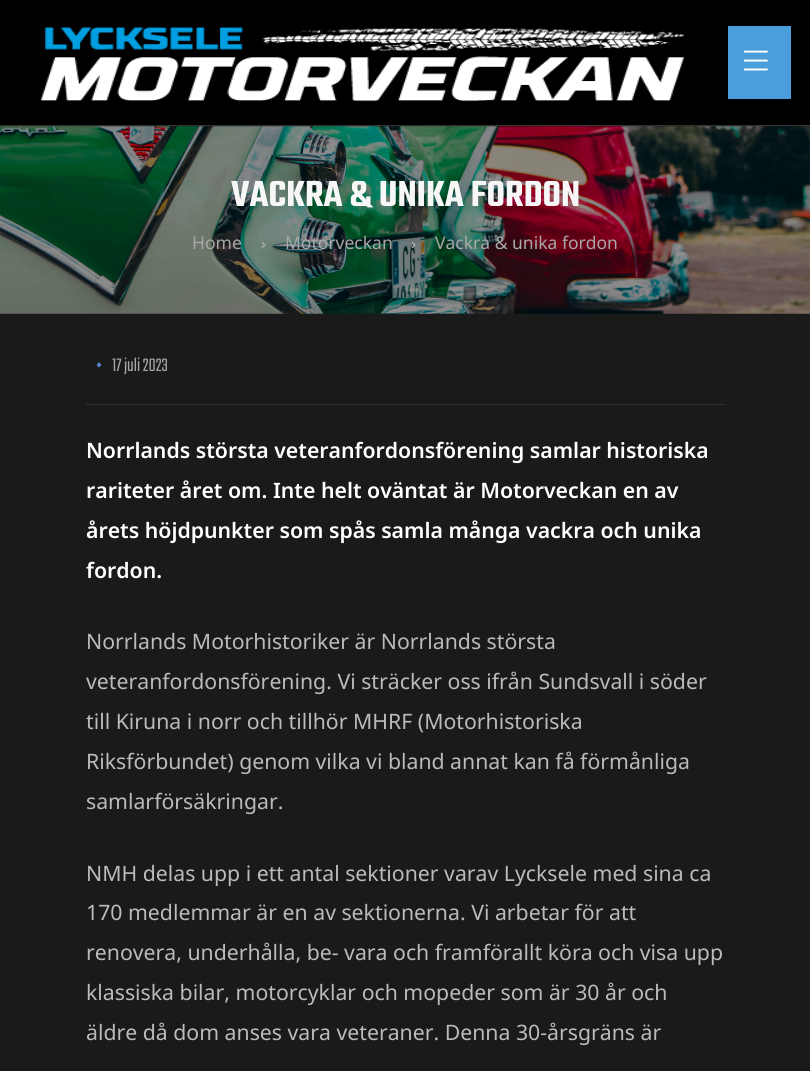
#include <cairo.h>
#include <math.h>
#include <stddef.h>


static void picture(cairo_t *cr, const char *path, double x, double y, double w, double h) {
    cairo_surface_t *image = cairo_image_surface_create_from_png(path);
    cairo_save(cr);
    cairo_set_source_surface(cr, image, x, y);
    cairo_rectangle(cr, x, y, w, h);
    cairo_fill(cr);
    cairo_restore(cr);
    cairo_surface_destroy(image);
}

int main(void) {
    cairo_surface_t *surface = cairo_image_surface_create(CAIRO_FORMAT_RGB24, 810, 1071);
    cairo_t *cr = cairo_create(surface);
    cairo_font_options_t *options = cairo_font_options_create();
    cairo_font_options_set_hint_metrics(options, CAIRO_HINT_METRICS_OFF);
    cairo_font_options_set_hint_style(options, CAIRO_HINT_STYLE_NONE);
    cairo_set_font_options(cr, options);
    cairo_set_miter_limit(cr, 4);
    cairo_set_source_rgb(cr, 0.102, 0.102, 0.102);
    cairo_paint(cr);
    cairo_set_source_rgb(cr, 0, 0, 0);
    cairo_rectangle(cr, 0, 0, 810, 125);
    cairo_fill(cr);
    cairo_set_source_rgb(cr, 0.196, 0.196, 0.196);
    cairo_rectangle(cr, 0, 125, 810, 1);
    cairo_fill(cr);
    picture(cr, "img1.png", 41, 26, 643, 76);
    cairo_set_source_rgb(cr, 0.286, 0.62, 0.859);
    cairo_rectangle(cr, 728, 26, 63, 73);
    cairo_fill(cr);
    picture(cr, "img2.png", 743, 50, 25, 21);
    picture(cr, "img3.png", 0, 126, 810, 188);
    cairo_select_font_face(cr, "Teko SemiBold", CAIRO_FONT_SLANT_NORMAL, CAIRO_FONT_WEIGHT_NORMAL);
    cairo_set_font_size(cr, 39.4);
    cairo_set_source_rgb(cr, 0.965, 0.965, 0.965);
    cairo_move_to(cr, 231, 206);
    cairo_show_text(cr, "VACKRA & UNIKA FORDON");
    cairo_select_font_face(cr, "Noto Sans", CAIRO_FONT_SLANT_NORMAL, CAIRO_FONT_WEIGHT_NORMAL);
    cairo_set_font_size(cr, 17.5);
    cairo_set_source_rgb(cr, 0.659, 0.659, 0.659);
    cairo_move_to(cr, 192, 249);
    cairo_show_text(cr, "Home");
    picture(cr, "img4.png", 261, 242, 5, 6);
    cairo_move_to(cr, 285, 249);
    cairo_show_text(cr, "Motorveckan");
    picture(cr, "img5.png", 411, 242, 5, 7);
    cairo_move_to(cr, 435, 249);
    cairo_show_text(cr, "Vackra & unika fordon");
    cairo_set_source_rgb(cr, 0.196, 0.196, 0.196);
    cairo_rectangle(cr, 86, 404, 638, 1);
    cairo_fill(cr);
    cairo_set_source_rgb(cr, 0.333, 0.525, 0.8);
    cairo_new_path(cr);
    cairo_move_to(cr, 99, 362);
    cairo_line_to(cr, 101.5, 365);
    cairo_line_to(cr, 99, 367.5);
    cairo_line_to(cr, 96.5, 365);
    cairo_close_path(cr);
    cairo_fill(cr);
    cairo_select_font_face(cr, "Teko Light", CAIRO_FONT_SLANT_NORMAL, CAIRO_FONT_WEIGHT_NORMAL);
    cairo_set_font_size(cr, 20);
    cairo_set_source_rgb(cr, 0.659, 0.659, 0.659);
    cairo_move_to(cr, 112, 371);
    cairo_show_text(cr, "17 juli 2023");
    cairo_select_font_face(cr, "Noto Sans SemiBold", CAIRO_FONT_SLANT_NORMAL, CAIRO_FONT_WEIGHT_NORMAL);
    cairo_set_font_size(cr, 21.25);
    cairo_set_source_rgb(cr, 1, 1, 1);
    cairo_move_to(cr, 86, 458);
    cairo_show_text(cr, "Norrlands största veteranfordonsförening samlar historiska");
    cairo_move_to(cr, 86, 498);
    cairo_show_text(cr, "rariteter året om. Inte helt oväntat är Motorveckan en av");
    cairo_move_to(cr, 86, 538);
    cairo_show_text(cr, "årets höjdpunkter som spås samla många vackra och unika");
    cairo_move_to(cr, 86, 578);
    cairo_show_text(cr, "fordon.");
    cairo_select_font_face(cr, "Noto Sans", CAIRO_FONT_SLANT_NORMAL, CAIRO_FONT_WEIGHT_NORMAL);
    cairo_set_source_rgb(cr, 0.733, 0.733, 0.733);
    cairo_move_to(cr, 86, 649);
    cairo_show_text(cr, "Norrlands Motorhistoriker är Norrlands största");
    cairo_move_to(cr, 86, 689);
    cairo_show_text(cr, "veteranfordonsförening. Vi sträcker oss ifrån Sundsvall i söder");
    cairo_move_to(cr, 86, 729);
    cairo_show_text(cr, "till Kiruna i norr och tillhör MHRF (Motorhistoriska");
    cairo_move_to(cr, 86, 769);
    cairo_show_text(cr, "Riksförbundet) genom vilka vi bland annat kan få förmånliga");
    cairo_move_to(cr, 86, 809);
    cairo_show_text(cr, "samlarförsäkringar.");
    cairo_move_to(cr, 86, 881);
    cairo_show_text(cr, "NMH delas upp i ett antal sektioner varav Lycksele med sina ca");
    cairo_move_to(cr, 86, 920);
    cairo_show_text(cr, "170 medlemmar är en av sektionerna. Vi arbetar för att");
    cairo_move_to(cr, 86, 960);
    cairo_show_text(cr, "renovera, underhålla, be- vara och framförallt köra och visa upp");
    cairo_move_to(cr, 86, 1000);
    cairo_show_text(cr, "klassiska bilar, motorcyklar och mopeder som är 30 år och");
    cairo_move_to(cr, 86, 1040);
    cairo_show_text(cr, "äldre då dom anses vara veteraner. Denna 30-årsgräns är");
    cairo_surface_write_to_png(surface, "page.png");
    cairo_font_options_destroy(options);
    cairo_destroy(cr);
    cairo_surface_destroy(surface);
    return 0;
}
